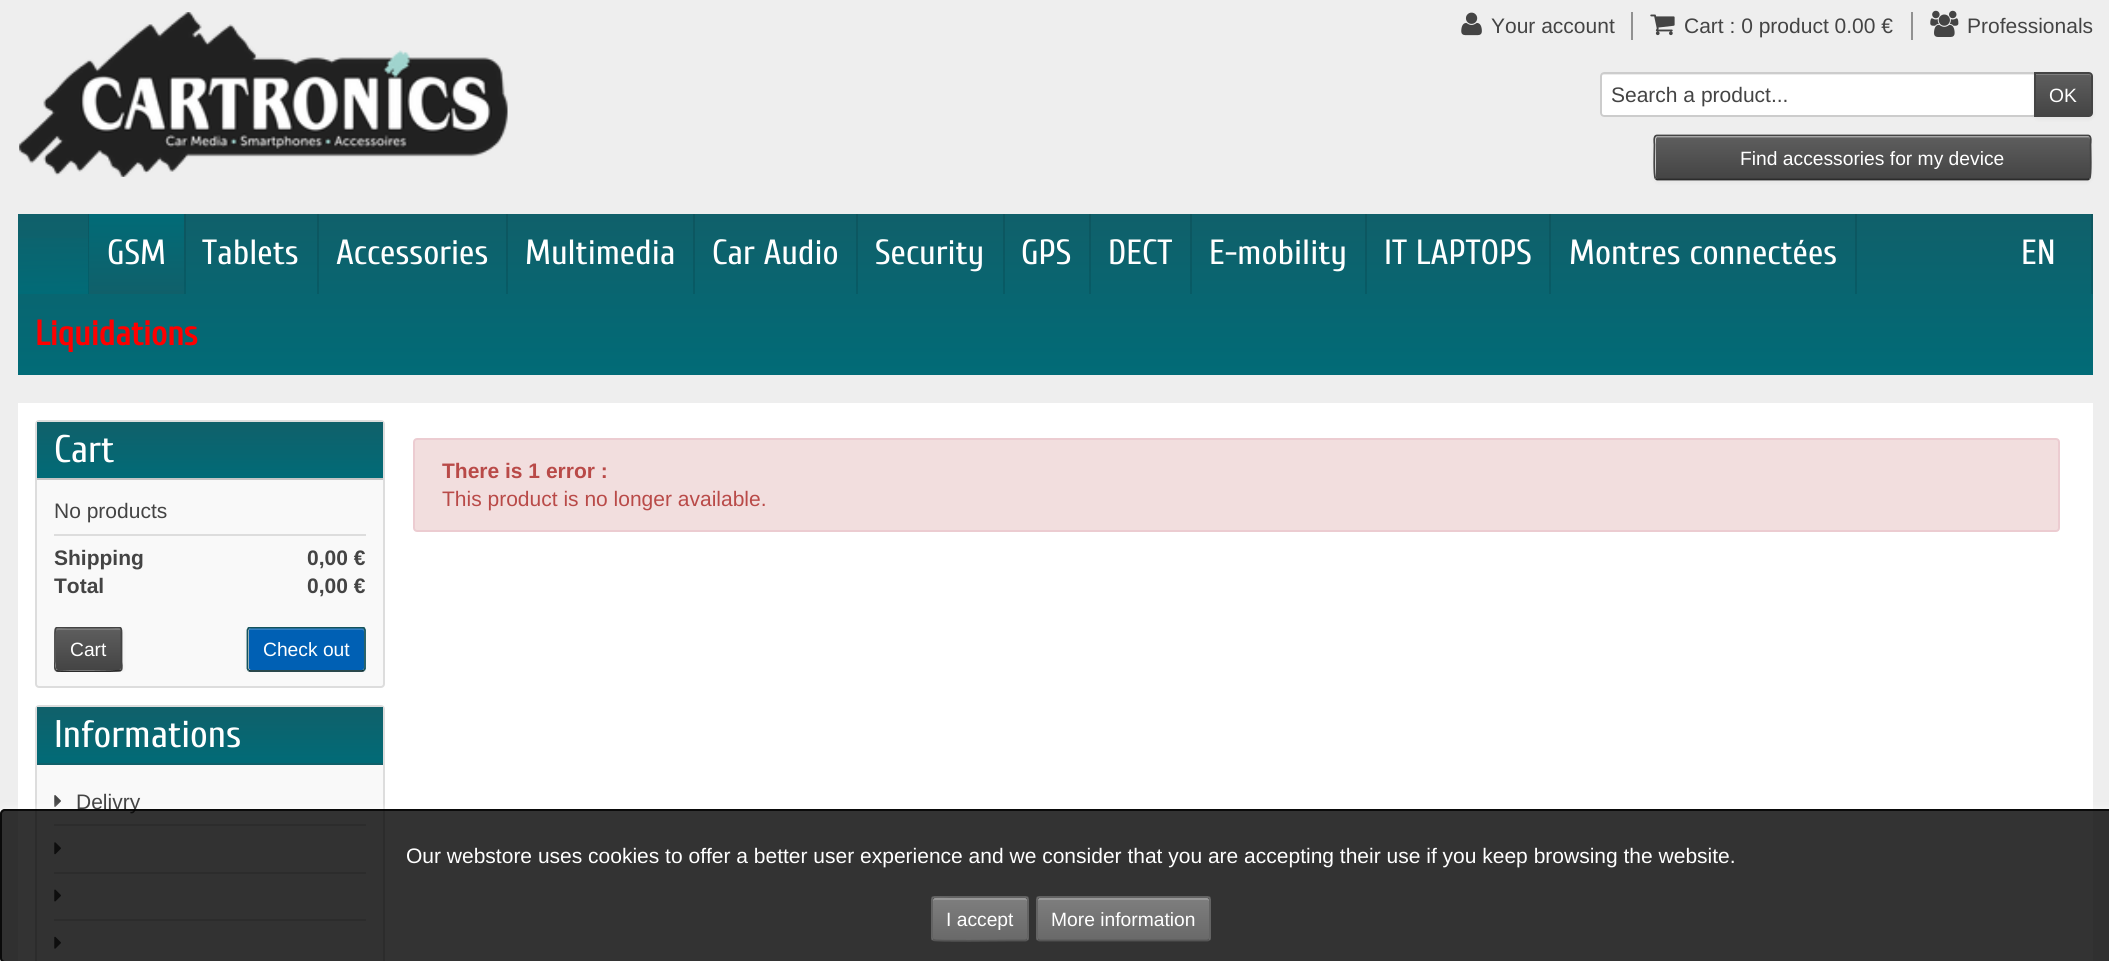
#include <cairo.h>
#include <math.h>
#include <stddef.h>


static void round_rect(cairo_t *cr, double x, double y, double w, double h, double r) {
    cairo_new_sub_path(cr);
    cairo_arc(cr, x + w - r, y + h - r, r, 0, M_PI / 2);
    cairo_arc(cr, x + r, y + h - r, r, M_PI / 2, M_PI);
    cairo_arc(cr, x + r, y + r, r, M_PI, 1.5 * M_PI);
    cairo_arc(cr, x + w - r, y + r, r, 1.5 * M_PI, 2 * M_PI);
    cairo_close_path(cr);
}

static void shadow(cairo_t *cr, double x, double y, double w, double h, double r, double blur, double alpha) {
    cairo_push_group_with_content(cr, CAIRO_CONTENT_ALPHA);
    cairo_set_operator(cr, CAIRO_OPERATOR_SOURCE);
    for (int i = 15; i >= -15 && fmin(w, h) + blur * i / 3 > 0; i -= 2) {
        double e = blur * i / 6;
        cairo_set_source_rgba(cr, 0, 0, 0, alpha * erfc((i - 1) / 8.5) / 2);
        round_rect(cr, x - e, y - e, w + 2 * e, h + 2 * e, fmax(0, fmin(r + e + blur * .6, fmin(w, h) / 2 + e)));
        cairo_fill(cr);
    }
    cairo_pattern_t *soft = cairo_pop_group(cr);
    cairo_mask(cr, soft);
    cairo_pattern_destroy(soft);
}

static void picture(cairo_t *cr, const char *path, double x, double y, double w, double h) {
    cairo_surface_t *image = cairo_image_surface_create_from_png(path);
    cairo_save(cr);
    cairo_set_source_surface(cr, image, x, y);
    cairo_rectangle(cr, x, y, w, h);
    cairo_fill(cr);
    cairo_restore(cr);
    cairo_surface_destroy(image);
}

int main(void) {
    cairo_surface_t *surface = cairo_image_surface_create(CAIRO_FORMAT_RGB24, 2109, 961);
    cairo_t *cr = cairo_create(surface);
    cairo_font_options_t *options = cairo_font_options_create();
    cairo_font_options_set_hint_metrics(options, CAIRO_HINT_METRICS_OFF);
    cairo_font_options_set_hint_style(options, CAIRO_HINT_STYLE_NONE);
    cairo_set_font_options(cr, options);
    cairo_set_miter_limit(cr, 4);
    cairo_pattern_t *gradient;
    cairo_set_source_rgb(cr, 0.933, 0.933, 0.933);
    cairo_paint(cr);
    picture(cr, "img1.png", 19, 12, 489, 165);
    cairo_set_source_rgb(cr, 0.569, 0.569, 0.569);
    cairo_rectangle(cr, 1631, 12, 2, 28);
    cairo_fill(cr);
    picture(cr, "img2.png", 1461, 12, 21, 24);
    cairo_select_font_face(cr, "Liberation Sans", CAIRO_FONT_SLANT_NORMAL, CAIRO_FONT_WEIGHT_NORMAL);
    cairo_set_font_size(cr, 21);
    cairo_set_source_rgb(cr, 0.267, 0.267, 0.267);
    cairo_move_to(cr, 1491, 33);
    cairo_show_text(cr, "Your account");
    cairo_set_source_rgb(cr, 0.569, 0.569, 0.569);
    cairo_rectangle(cr, 1911, 12, 2, 28);
    cairo_fill(cr);
    picture(cr, "img3.png", 1650, 14, 25, 22);
    cairo_set_source_rgb(cr, 0.267, 0.267, 0.267);
    cairo_move_to(cr, 1684, 33);
    cairo_show_text(cr, "Cart : 0 product 0.00 €");
    picture(cr, "img4.png", 1930, 10, 29, 27);
    cairo_move_to(cr, 1967, 33);
    cairo_show_text(cr, "Professionals");
    cairo_set_source_rgb(cr, 1, 1, 1);
    round_rect(cr, 1600, 72, 437, 45, 4);
    cairo_fill(cr);
    cairo_set_source_rgb(cr, 0.925, 0.925, 0.925);
    cairo_new_path(cr);
    cairo_move_to(cr, 1603, 75);
    cairo_line_to(cr, 2034, 75);
    cairo_line_to(cr, 2035, 77);
    cairo_curve_to(cr, 2035, 76, 2035, 74, 2033, 74);
    cairo_line_to(cr, 1603, 74);
    cairo_line_to(cr, 1601, 75);
    cairo_line_to(cr, 1601, 77);
    cairo_curve_to(cr, 1601, 76, 1602, 75, 1603, 75);
    cairo_close_path(cr);
    cairo_fill(cr);
    round_rect(cr, 1601, 73, 435, 43, 3);
    cairo_set_source_rgb(cr, 0.8, 0.8, 0.8);
    cairo_stroke(cr);
    cairo_set_source_rgb(cr, 0.267, 0.267, 0.267);
    cairo_move_to(cr, 1611, 102);
    cairo_show_text(cr, "Search a product...");
    cairo_set_source_rgb(cr, 0, 0, 0);
    shadow(cr, 2034, 74, 59, 45, 4, 2, 0.05);
    gradient = cairo_pattern_create_linear(2063, 74, 2063, 116);
    cairo_pattern_add_color_stop_rgba(gradient, 0, 0.369, 0.369, 0.369, 1);
    cairo_pattern_add_color_stop_rgba(gradient, 1, 0.267, 0.267, 0.267, 1);
    cairo_set_source(cr, gradient);
    cairo_pattern_destroy(gradient);
    cairo_new_path(cr);
    cairo_move_to(cr, 2035, 74);
    cairo_line_to(cr, 2089, 74);
    cairo_curve_to(cr, 2090, 74, 2091, 75, 2091, 76);
    cairo_line_to(cr, 2091, 114);
    cairo_curve_to(cr, 2091, 115, 2090, 116, 2089, 116);
    cairo_line_to(cr, 2035, 116);
    cairo_close_path(cr);
    cairo_fill(cr);
    cairo_set_source_rgb(cr, 0.494, 0.494, 0.494);
    cairo_new_path(cr);
    cairo_move_to(cr, 2035, 75);
    cairo_line_to(cr, 2090, 75);
    cairo_line_to(cr, 2091, 77);
    cairo_line_to(cr, 2091, 76);
    cairo_curve_to(cr, 2091, 75, 2090, 74, 2089, 74);
    cairo_line_to(cr, 2035, 74);
    cairo_close_path(cr);
    cairo_fill(cr);
    cairo_new_path(cr);
    cairo_move_to(cr, 2035, 73);
    cairo_line_to(cr, 2089, 73);
    cairo_curve_to(cr, 2090.5, 73, 2092, 74.5, 2092, 76);
    cairo_line_to(cr, 2092, 113);
    cairo_curve_to(cr, 2092, 114.5, 2090.5, 116, 2089, 116);
    cairo_line_to(cr, 2035, 116);
    cairo_close_path(cr);
    cairo_set_source_rgb(cr, 0.267, 0.267, 0.267);
    cairo_stroke(cr);
    cairo_set_font_size(cr, 19.25);
    cairo_set_source_rgb(cr, 1, 1, 1);
    cairo_move_to(cr, 2049, 102);
    cairo_show_text(cr, "OK");
    cairo_set_source_rgb(cr, 0, 0, 0);
    shadow(cr, 1654, 137, 437, 45, 4, 2, 0.05);
    gradient = cairo_pattern_create_linear(1873, 136, 1873, 179);
    cairo_pattern_add_color_stop_rgba(gradient, 0, 0.369, 0.369, 0.369, 1);
    cairo_pattern_add_color_stop_rgba(gradient, 1, 0.267, 0.267, 0.267, 1);
    cairo_set_source(cr, gradient);
    cairo_pattern_destroy(gradient);
    round_rect(cr, 1656, 137, 434, 42, 2);
    cairo_fill(cr);
    cairo_set_source_rgb(cr, 0.49, 0.49, 0.49);
    cairo_new_path(cr);
    cairo_move_to(cr, 1657, 138);
    cairo_line_to(cr, 2088, 138);
    cairo_curve_to(cr, 2089, 138, 2090, 139, 2090, 140);
    cairo_curve_to(cr, 2090, 139, 2090, 137, 2088, 137);
    cairo_line_to(cr, 1658, 137);
    cairo_line_to(cr, 1656, 138);
    cairo_line_to(cr, 1656, 140);
    cairo_curve_to(cr, 1656, 139, 1656, 138, 1657, 138);
    cairo_close_path(cr);
    cairo_fill(cr);
    cairo_new_path(cr);
    cairo_move_to(cr, 2089.5, 178.5);
    cairo_line_to(cr, 2088, 179.5);
    cairo_line_to(cr, 1657, 179.5);
    cairo_line_to(cr, 1655.5, 178.5);
    cairo_set_source_rgb(cr, 0.169, 0.169, 0.169);
    cairo_set_line_width(cr, 1.8);
    cairo_stroke(cr);
    cairo_new_path(cr);
    cairo_move_to(cr, 1655.5, 178.5);
    cairo_curve_to(cr, 1653.5, 176.5, 1654.5, 149, 1654.5, 144.5);
    cairo_curve_to(cr, 1654.5, 143, 1653, 135.5, 1657, 135.5);
    cairo_line_to(cr, 2088, 135.5);
    cairo_curve_to(cr, 2092, 135.5, 2090.5, 143, 2090.5, 144.5);
    cairo_curve_to(cr, 2090.5, 149, 2091.5, 176.5, 2089.5, 178.5);
    cairo_set_source_rgb(cr, 0.267, 0.267, 0.267);
    cairo_stroke(cr);
    cairo_set_source_rgb(cr, 1, 1, 1);
    cairo_move_to(cr, 1740, 165);
    cairo_show_text(cr, "Find accessories for my device");
    gradient = cairo_pattern_create_linear(1055, 213, 1055, 375);
    cairo_pattern_add_color_stop_rgba(gradient, 0, 0.063, 0.376, 0.416, 1);
    cairo_pattern_add_color_stop_rgba(gradient, 1, 0.004, 0.42, 0.467, 1);
    cairo_set_source(cr, gradient);
    cairo_pattern_destroy(gradient);
    cairo_rectangle(cr, 18, 214, 2075, 161);
    cairo_fill(cr);
    gradient = cairo_pattern_create_linear(1055, 213, 1055, 375);
    cairo_pattern_add_color_stop_rgba(gradient, 0, 0.055, 0.337, 0.373, 1);
    cairo_pattern_add_color_stop_rgba(gradient, 1, 0.004, 0.376, 0.42, 1);
    cairo_set_source(cr, gradient);
    cairo_pattern_destroy(gradient);
    cairo_rectangle(cr, 1855, 214, 2, 80);
    cairo_fill(cr);
    cairo_rectangle(cr, 1549, 214, 2, 80);
    cairo_fill(cr);
    cairo_rectangle(cr, 1365, 214, 2, 80);
    cairo_fill(cr);
    cairo_rectangle(cr, 1190, 214, 2, 80);
    cairo_fill(cr);
    cairo_rectangle(cr, 1089, 214, 2, 80);
    cairo_fill(cr);
    cairo_rectangle(cr, 1003, 214, 2, 80);
    cairo_fill(cr);
    cairo_rectangle(cr, 856, 214, 2, 80);
    cairo_fill(cr);
    cairo_rectangle(cr, 693, 214, 2, 80);
    cairo_fill(cr);
    cairo_rectangle(cr, 506, 214, 2, 80);
    cairo_fill(cr);
    cairo_rectangle(cr, 317, 214, 2, 80);
    cairo_fill(cr);
    cairo_rectangle(cr, 184, 214, 2, 80);
    cairo_fill(cr);
    cairo_rectangle(cr, 2091, 214, 2, 80);
    cairo_fill(cr);
    gradient = cairo_pattern_create_linear(52, 214, 53, 294);
    cairo_pattern_add_color_stop_rgba(gradient, 0, 0.063, 0.376, 0.416, 1);
    cairo_pattern_add_color_stop_rgba(gradient, 1, 0.004, 0.42, 0.467, 1);
    cairo_set_source(cr, gradient);
    cairo_pattern_destroy(gradient);
    cairo_rectangle(cr, 18, 238, 70, 56);
    cairo_fill(cr);
    gradient = cairo_pattern_create_linear(52, 214, 53, 294);
    cairo_pattern_add_color_stop_rgba(gradient, 0, 0.055, 0.337, 0.373, 1);
    cairo_pattern_add_color_stop_rgba(gradient, 1, 0.004, 0.376, 0.42, 1);
    cairo_set_source(cr, gradient);
    cairo_pattern_destroy(gradient);
    cairo_rectangle(cr, 88, 214, 1, 80);
    cairo_fill(cr);
    gradient = cairo_pattern_create_linear(137, 214, 137, 294);
    cairo_pattern_add_color_stop_rgba(gradient, 0, 0.004, 0.42, 0.467, 1);
    cairo_pattern_add_color_stop_rgba(gradient, 1, 0.063, 0.376, 0.416, 1);
    cairo_set_source(cr, gradient);
    cairo_pattern_destroy(gradient);
    cairo_rectangle(cr, 89, 214, 95, 80);
    cairo_fill(cr);
    cairo_select_font_face(cr, "Cuprum", CAIRO_FONT_SLANT_NORMAL, CAIRO_FONT_WEIGHT_NORMAL);
    cairo_set_font_size(cr, 35);
    cairo_set_source_rgb(cr, 1, 1, 1);
    cairo_move_to(cr, 107, 264);
    cairo_show_text(cr, "GSM");
    cairo_move_to(cr, 202, 264);
    cairo_show_text(cr, "Tablets");
    cairo_move_to(cr, 336, 264);
    cairo_show_text(cr, "Accessories");
    cairo_move_to(cr, 525, 264);
    cairo_show_text(cr, "Multimedia");
    cairo_move_to(cr, 712, 264);
    cairo_show_text(cr, "Car Audio");
    cairo_move_to(cr, 875, 264);
    cairo_show_text(cr, "Security");
    cairo_move_to(cr, 1021, 264);
    cairo_show_text(cr, "GPS");
    cairo_move_to(cr, 1108, 264);
    cairo_show_text(cr, "DECT");
    cairo_move_to(cr, 1209, 264);
    cairo_show_text(cr, "E-mobility");
    cairo_move_to(cr, 1384, 264);
    cairo_show_text(cr, "IT LAPTOPS");
    cairo_move_to(cr, 1569, 264);
    cairo_show_text(cr, "Montres connectées");
    cairo_move_to(cr, 2021, 264);
    cairo_show_text(cr, "EN");
    cairo_select_font_face(cr, "Cuprum", CAIRO_FONT_SLANT_NORMAL, CAIRO_FONT_WEIGHT_BOLD);
    cairo_set_source_rgb(cr, 1, 0, 0);
    cairo_move_to(cr, 35, 345);
    cairo_show_text(cr, "Liquidations");
    cairo_set_source_rgb(cr, 1, 1, 1);
    cairo_rectangle(cr, 18, 403, 2075, 558);
    cairo_fill(cr);
    cairo_set_source_rgb(cr, 0.976, 0.976, 0.976);
    round_rect(cr, 36, 706, 348, 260, 3);
    cairo_fill_preserve(cr);
    cairo_set_source_rgb(cr, 0.867, 0.867, 0.867);
    cairo_set_line_width(cr, 2);
    cairo_stroke(cr);
    cairo_rectangle(cr, 54, 824, 312, 2);
    cairo_fill(cr);
    picture(cr, "img5.png", 54, 795, 7, 12);
    cairo_rectangle(cr, 54, 872, 312, 2);
    cairo_fill(cr);
    picture(cr, "img6.png", 54, 842, 7, 13);
    cairo_rectangle(cr, 54, 919, 312, 2);
    cairo_fill(cr);
    picture(cr, "img7.png", 54, 889, 7, 13);
    picture(cr, "img8.png", 54, 936, 7, 13);
    cairo_save(cr);
    cairo_set_fill_rule(cr, CAIRO_FILL_RULE_EVEN_ODD);
    cairo_new_path(cr);
    cairo_move_to(cr, 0, 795);
    cairo_line_to(cr, 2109, 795);
    cairo_line_to(cr, 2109, 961);
    cairo_line_to(cr, 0, 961);
    cairo_close_path(cr);
    cairo_move_to(cr, 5, 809);
    cairo_line_to(cr, 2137, 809);
    cairo_curve_to(cr, 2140, 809, 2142, 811, 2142, 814);
    cairo_line_to(cr, 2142, 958);
    cairo_curve_to(cr, 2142, 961, 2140, 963, 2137, 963);
    cairo_line_to(cr, 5, 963);
    cairo_curve_to(cr, 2, 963, 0, 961, 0, 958);
    cairo_line_to(cr, 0, 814);
    cairo_curve_to(cr, 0, 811, 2, 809, 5, 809);
    cairo_close_path(cr);
    cairo_clip(cr);
    cairo_set_source_rgb(cr, 1, 1, 1);
    shadow(cr, 0, 810, 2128, 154, 5, 4.5, 0.8);
    cairo_restore(cr);
    cairo_select_font_face(cr, "Liberation Sans", CAIRO_FONT_SLANT_NORMAL, CAIRO_FONT_WEIGHT_NORMAL);
    cairo_set_font_size(cr, 21);
    cairo_set_source_rgb(cr, 0.267, 0.267, 0.267);
    cairo_move_to(cr, 76, 809);
    cairo_show_text(cr, "Delivry");
    cairo_set_source_rgba(cr, 0, 0, 0, 0.8);
    round_rect(cr, 0, 809, 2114, 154, 5);
    cairo_fill(cr);
    round_rect(cr, 1, 810, 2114, 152, 4);
    cairo_stroke(cr);
    cairo_set_source_rgb(cr, 1, 1, 1);
    cairo_move_to(cr, 406, 863);
    cairo_show_text(cr, "Our webstore uses cookies to offer a better user experience and we consider that you are accepting their use if you keep browsing the website.");
    gradient = cairo_pattern_create_linear(980, 898, 980, 940);
    cairo_pattern_add_color_stop_rgba(gradient, 0, 0.494, 0.494, 0.494, 1);
    cairo_pattern_add_color_stop_rgba(gradient, 1, 0.412, 0.412, 0.412, 1);
    cairo_set_source(cr, gradient);
    cairo_pattern_destroy(gradient);
    round_rect(cr, 933, 898, 94, 42, 2);
    cairo_fill(cr);
    cairo_set_source_rgba(cr, 1, 1, 1, 0.2);
    cairo_new_path(cr);
    cairo_move_to(cr, 934, 900);
    cairo_line_to(cr, 1026, 900);
    cairo_line_to(cr, 1027, 901);
    cairo_curve_to(cr, 1027, 900, 1027, 898, 1025, 898);
    cairo_line_to(cr, 950, 898);
    cairo_curve_to(cr, 948, 898, 933, 894, 933, 901);
    cairo_close_path(cr);
    cairo_fill(cr);
    cairo_new_path(cr);
    cairo_move_to(cr, 1027.5, 940);
    cairo_line_to(cr, 1025.5, 940.5);
    cairo_line_to(cr, 1010.5, 940.5);
    cairo_curve_to(cr, 1002.5, 940.5, 935, 941.5, 933, 940);
    cairo_line_to(cr, 932.5, 940);
    cairo_set_source_rgb(cr, 0.333, 0.333, 0.333);
    cairo_set_line_width(cr, 1.8);
    cairo_stroke(cr);
    cairo_new_path(cr);
    cairo_move_to(cr, 932.5, 940);
    cairo_line_to(cr, 932, 938);
    cairo_line_to(cr, 932, 899.5);
    cairo_line_to(cr, 932.5, 897.5);
    cairo_line_to(cr, 934.5, 897);
    cairo_line_to(cr, 1025.5, 897);
    cairo_line_to(cr, 1027.5, 897.5);
    cairo_line_to(cr, 1028, 899.5);
    cairo_line_to(cr, 1028, 938);
    cairo_line_to(cr, 1027.5, 940);
    cairo_set_source_rgb(cr, 0.412, 0.412, 0.412);
    cairo_stroke(cr);
    cairo_set_font_size(cr, 19.25);
    cairo_set_source_rgb(cr, 1, 1, 1);
    cairo_move_to(cr, 946, 926);
    cairo_show_text(cr, "I accept");
    gradient = cairo_pattern_create_linear(1124, 898, 1124, 940);
    cairo_pattern_add_color_stop_rgba(gradient, 0, 0.494, 0.494, 0.494, 1);
    cairo_pattern_add_color_stop_rgba(gradient, 1, 0.412, 0.412, 0.412, 1);
    cairo_set_source(cr, gradient);
    cairo_pattern_destroy(gradient);
    round_rect(cr, 1038, 898, 171, 42, 2);
    cairo_fill(cr);
    cairo_set_source_rgba(cr, 1, 1, 1, 0.2);
    cairo_new_path(cr);
    cairo_move_to(cr, 1040, 900);
    cairo_line_to(cr, 1208, 900);
    cairo_line_to(cr, 1209, 901);
    cairo_curve_to(cr, 1209, 900, 1209, 898, 1207, 898);
    cairo_line_to(cr, 1039, 898);
    cairo_curve_to(cr, 1038, 899, 1038, 900, 1038, 901);
    cairo_curve_to(cr, 1038, 900, 1039, 900, 1040, 900);
    cairo_close_path(cr);
    cairo_fill(cr);
    cairo_new_path(cr);
    cairo_move_to(cr, 1209.5, 940);
    cairo_line_to(cr, 1207.5, 940.5);
    cairo_line_to(cr, 1039.5, 940.5);
    cairo_line_to(cr, 1037.5, 940);
    cairo_set_source_rgb(cr, 0.333, 0.333, 0.333);
    cairo_stroke(cr);
    cairo_new_path(cr);
    cairo_move_to(cr, 1037.5, 940);
    cairo_line_to(cr, 1037, 938);
    cairo_line_to(cr, 1037, 899.5);
    cairo_line_to(cr, 1037.5, 897.5);
    cairo_line_to(cr, 1039.5, 897);
    cairo_line_to(cr, 1207.5, 897);
    cairo_line_to(cr, 1209.5, 897.5);
    cairo_line_to(cr, 1210, 899.5);
    cairo_line_to(cr, 1210, 938);
    cairo_line_to(cr, 1209.5, 940);
    cairo_set_source_rgb(cr, 0.412, 0.412, 0.412);
    cairo_stroke(cr);
    cairo_set_source_rgb(cr, 1, 1, 1);
    cairo_move_to(cr, 1051, 926);
    cairo_show_text(cr, "More information");
    cairo_set_source_rgb(cr, 0.976, 0.976, 0.976);
    round_rect(cr, 36, 421, 348, 266, 3);
    cairo_fill_preserve(cr);
    cairo_set_source_rgb(cr, 0.867, 0.867, 0.867);
    cairo_set_line_width(cr, 2);
    cairo_stroke(cr);
    gradient = cairo_pattern_create_linear(210, 422, 210, 478);
    cairo_pattern_add_color_stop_rgba(gradient, 0, 0.063, 0.376, 0.416, 1);
    cairo_pattern_add_color_stop_rgba(gradient, 1, 0.004, 0.42, 0.467, 1);
    cairo_set_source(cr, gradient);
    cairo_pattern_destroy(gradient);
    cairo_rectangle(cr, 37, 422, 346, 56);
    cairo_fill(cr);
    cairo_set_source_rgb(cr, 0.769, 0.769, 0.769);
    cairo_rectangle(cr, 37, 478, 346, 2);
    cairo_fill(cr);
    cairo_select_font_face(cr, "Cuprum", CAIRO_FONT_SLANT_NORMAL, CAIRO_FONT_WEIGHT_NORMAL);
    cairo_set_font_size(cr, 38.5);
    cairo_set_source_rgb(cr, 1, 1, 1);
    cairo_move_to(cr, 54, 462);
    cairo_show_text(cr, "Cart");
    cairo_select_font_face(cr, "Liberation Sans", CAIRO_FONT_SLANT_NORMAL, CAIRO_FONT_WEIGHT_NORMAL);
    cairo_set_font_size(cr, 21);
    cairo_set_source_rgb(cr, 0.267, 0.267, 0.267);
    cairo_move_to(cr, 54, 518);
    cairo_show_text(cr, "No products");
    cairo_set_source_rgb(cr, 0.867, 0.867, 0.867);
    cairo_rectangle(cr, 54, 534, 312, 2);
    cairo_fill(cr);
    cairo_select_font_face(cr, "Liberation Sans", CAIRO_FONT_SLANT_NORMAL, CAIRO_FONT_WEIGHT_BOLD);
    cairo_set_source_rgb(cr, 0.267, 0.267, 0.267);
    cairo_move_to(cr, 54, 565);
    cairo_show_text(cr, "Shipping");
    cairo_move_to(cr, 307, 565);
    cairo_show_text(cr, "0,00 €");
    cairo_move_to(cr, 54, 593);
    cairo_show_text(cr, "Total");
    cairo_move_to(cr, 307, 593);
    cairo_show_text(cr, "0,00 €");
    cairo_save(cr);
    cairo_rectangle(cr, 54, 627, 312, 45);
    cairo_clip(cr);
    cairo_set_source_rgb(cr, 0, 0, 0);
    shadow(cr, 54, 628, 69, 46, 4, 2, 0.05);
    cairo_restore(cr);
    gradient = cairo_pattern_create_linear(88, 628, 88, 670);
    cairo_pattern_add_color_stop_rgba(gradient, 0, 0.369, 0.369, 0.369, 1);
    cairo_pattern_add_color_stop_rgba(gradient, 1, 0.267, 0.267, 0.267, 1);
    cairo_set_source(cr, gradient);
    cairo_pattern_destroy(gradient);
    round_rect(cr, 56, 628, 65, 42, 2);
    cairo_fill(cr);
    cairo_set_source_rgba(cr, 1, 1, 1, 0.2);
    cairo_new_path(cr);
    cairo_move_to(cr, 58, 630);
    cairo_line_to(cr, 120, 630);
    cairo_line_to(cr, 121, 632);
    cairo_curve_to(cr, 121, 625, 116, 628, 109, 628);
    cairo_line_to(cr, 68, 628);
    cairo_curve_to(cr, 61, 628, 56, 625, 56, 632);
    cairo_curve_to(cr, 56, 631, 57, 630, 58, 630);
    cairo_close_path(cr);
    cairo_fill(cr);
    cairo_save(cr);
    cairo_rectangle(cr, 54, 627, 312, 45);
    cairo_clip(cr);
    cairo_new_path(cr);
    cairo_move_to(cr, 121, 670.5);
    cairo_line_to(cr, 120.5, 670.5);
    cairo_curve_to(cr, 119.5, 671.5, 63, 671.5, 57.5, 671);
    cairo_line_to(cr, 56, 670.5);
    cairo_set_source_rgb(cr, 0.169, 0.169, 0.169);
    cairo_set_line_width(cr, 1.8);
    cairo_stroke(cr);
    cairo_new_path(cr);
    cairo_move_to(cr, 56, 670.5);
    cairo_curve_to(cr, 54, 668.5, 55, 662.5, 55, 662);
    cairo_line_to(cr, 55, 636.5);
    cairo_curve_to(cr, 55, 625, 55, 627.5, 68, 627.5);
    cairo_line_to(cr, 109, 627.5);
    cairo_curve_to(cr, 122, 627.5, 121.5, 625, 121.5, 636.5);
    cairo_line_to(cr, 121.5, 662);
    cairo_curve_to(cr, 121.5, 662.5, 122.5, 668.5, 121, 670.5);
    cairo_set_source_rgb(cr, 0.267, 0.267, 0.267);
    cairo_stroke(cr);
    cairo_restore(cr);
    cairo_select_font_face(cr, "Liberation Sans", CAIRO_FONT_SLANT_NORMAL, CAIRO_FONT_WEIGHT_NORMAL);
    cairo_set_font_size(cr, 19.25);
    cairo_set_source_rgb(cr, 1, 1, 1);
    cairo_move_to(cr, 70, 656);
    cairo_show_text(cr, "Cart");
    cairo_save(cr);
    cairo_rectangle(cr, 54, 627, 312, 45);
    cairo_clip(cr);
    cairo_set_source_rgb(cr, 0, 0, 0);
    shadow(cr, 247, 628, 119, 46, 4, 2, 0.05);
    cairo_restore(cr);
    cairo_set_source_rgb(cr, 0, 0.376, 0.706);
    round_rect(cr, 249, 628, 115, 42, 2);
    cairo_fill(cr);
    cairo_set_source_rgba(cr, 1, 1, 1, 0.2);
    cairo_new_path(cr);
    cairo_move_to(cr, 250, 630);
    cairo_line_to(cr, 362, 630);
    cairo_curve_to(cr, 363, 630, 364, 631, 364, 632);
    cairo_line_to(cr, 364, 630);
    cairo_curve_to(cr, 364, 629, 363, 628, 362, 628);
    cairo_line_to(cr, 251, 628);
    cairo_curve_to(cr, 250, 628, 249, 629, 249, 630);
    cairo_close_path(cr);
    cairo_fill(cr);
    cairo_new_path(cr);
    cairo_move_to(cr, 364, 670.5);
    cairo_line_to(cr, 362, 671);
    cairo_line_to(cr, 250, 671);
    cairo_line_to(cr, 248.5, 670.5);
    cairo_set_source_rgb(cr, 0.043, 0.18, 0.2);
    cairo_set_line_width(cr, 1.8);
    cairo_stroke(cr);
    cairo_save(cr);
    cairo_rectangle(cr, 54, 627, 312, 45);
    cairo_clip(cr);
    cairo_new_path(cr);
    cairo_move_to(cr, 248.5, 670.5);
    cairo_line_to(cr, 247.5, 668.5);
    cairo_line_to(cr, 247.5, 630);
    cairo_line_to(cr, 248.5, 628);
    cairo_line_to(cr, 250, 627.5);
    cairo_line_to(cr, 362, 627.5);
    cairo_line_to(cr, 364, 628);
    cairo_line_to(cr, 365, 630);
    cairo_line_to(cr, 365, 668.5);
    cairo_line_to(cr, 364, 670.5);
    cairo_set_source_rgb(cr, 0.082, 0.325, 0.361);
    cairo_stroke(cr);
    cairo_restore(cr);
    cairo_set_source_rgb(cr, 1, 1, 1);
    cairo_move_to(cr, 263, 656);
    cairo_show_text(cr, "Check out");
    gradient = cairo_pattern_create_linear(210, 707, 210, 763);
    cairo_pattern_add_color_stop_rgba(gradient, 0, 0.063, 0.376, 0.416, 1);
    cairo_pattern_add_color_stop_rgba(gradient, 1, 0.004, 0.42, 0.467, 1);
    cairo_set_source(cr, gradient);
    cairo_pattern_destroy(gradient);
    cairo_rectangle(cr, 37, 707, 346, 56);
    cairo_fill(cr);
    cairo_set_source_rgb(cr, 0.063, 0.376, 0.416);
    cairo_rectangle(cr, 37, 763, 346, 2);
    cairo_fill(cr);
    cairo_select_font_face(cr, "Cuprum", CAIRO_FONT_SLANT_NORMAL, CAIRO_FONT_WEIGHT_NORMAL);
    cairo_set_font_size(cr, 38.5);
    cairo_set_source_rgb(cr, 1, 1, 1);
    cairo_move_to(cr, 54, 747);
    cairo_show_text(cr, "Informations");
    cairo_set_source_rgb(cr, 0.949, 0.871, 0.871);
    round_rect(cr, 414, 439, 1645, 92, 3);
    cairo_fill_preserve(cr);
    cairo_set_source_rgb(cr, 0.922, 0.8, 0.82);
    cairo_set_line_width(cr, 2);
    cairo_stroke(cr);
    cairo_select_font_face(cr, "Liberation Sans", CAIRO_FONT_SLANT_NORMAL, CAIRO_FONT_WEIGHT_BOLD);
    cairo_set_font_size(cr, 21);
    cairo_set_source_rgb(cr, 0.725, 0.29, 0.282);
    cairo_move_to(cr, 442, 478);
    cairo_show_text(cr, "There is 1 error :");
    cairo_select_font_face(cr, "Liberation Sans", CAIRO_FONT_SLANT_NORMAL, CAIRO_FONT_WEIGHT_NORMAL);
    cairo_move_to(cr, 442, 506);
    cairo_show_text(cr, "This product is no longer available.");
    cairo_surface_write_to_png(surface, "page.png");
    cairo_font_options_destroy(options);
    cairo_destroy(cr);
    cairo_surface_destroy(surface);
    return 0;
}
